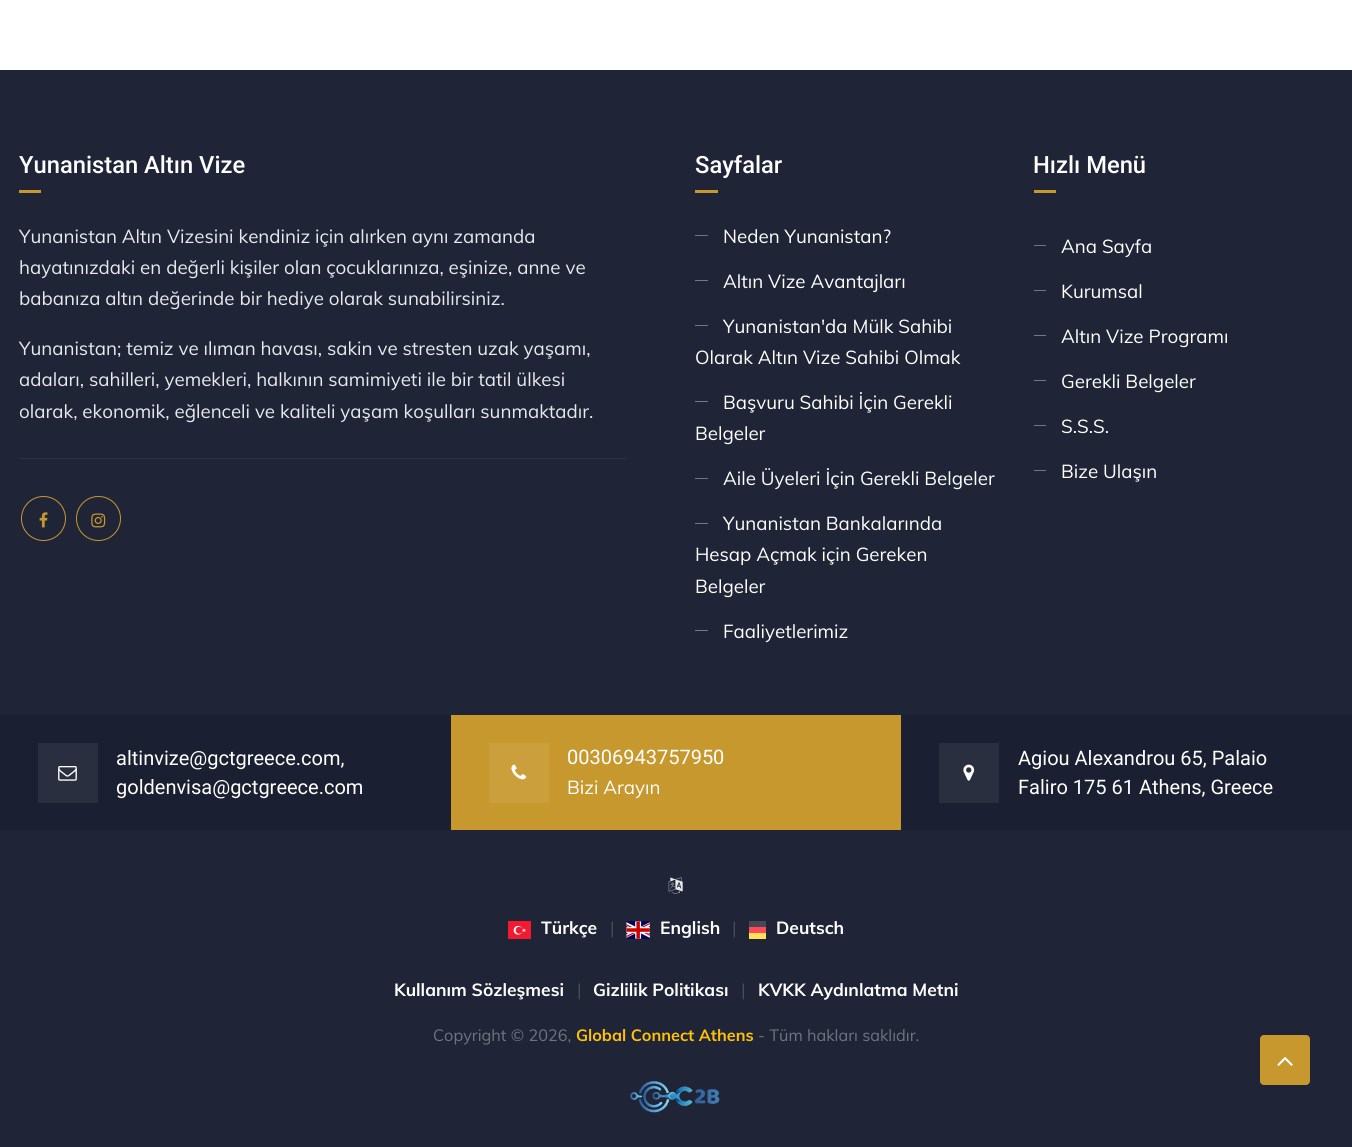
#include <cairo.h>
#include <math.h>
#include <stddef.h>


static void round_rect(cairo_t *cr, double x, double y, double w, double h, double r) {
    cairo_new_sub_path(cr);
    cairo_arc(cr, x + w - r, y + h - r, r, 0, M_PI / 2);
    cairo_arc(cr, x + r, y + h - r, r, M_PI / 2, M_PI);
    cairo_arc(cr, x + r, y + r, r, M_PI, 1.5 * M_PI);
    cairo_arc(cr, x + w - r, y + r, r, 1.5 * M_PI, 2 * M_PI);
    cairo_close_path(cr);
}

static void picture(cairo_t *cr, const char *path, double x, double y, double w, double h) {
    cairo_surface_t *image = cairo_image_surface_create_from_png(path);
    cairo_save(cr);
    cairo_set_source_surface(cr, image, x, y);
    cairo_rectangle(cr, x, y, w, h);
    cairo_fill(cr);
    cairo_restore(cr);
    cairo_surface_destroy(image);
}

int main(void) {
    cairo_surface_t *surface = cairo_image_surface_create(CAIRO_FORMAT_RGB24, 1352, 1147);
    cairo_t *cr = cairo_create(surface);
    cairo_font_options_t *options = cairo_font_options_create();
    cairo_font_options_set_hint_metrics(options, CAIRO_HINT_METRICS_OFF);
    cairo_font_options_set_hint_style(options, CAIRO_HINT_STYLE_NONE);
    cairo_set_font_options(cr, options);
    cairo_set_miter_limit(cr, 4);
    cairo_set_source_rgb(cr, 1, 1, 1);
    cairo_paint(cr);
    cairo_set_source_rgb(cr, 0.122, 0.141, 0.216);
    cairo_rectangle(cr, 0, 70, 1352, 1077);
    cairo_fill(cr);
    cairo_set_source_rgb(cr, 0.173, 0.192, 0.263);
    cairo_rectangle(cr, 19, 458, 607, 1);
    cairo_fill(cr);
    cairo_select_font_face(cr, "Roboto Medium", CAIRO_FONT_SLANT_NORMAL, CAIRO_FONT_WEIGHT_NORMAL);
    cairo_set_font_size(cr, 23.75);
    cairo_set_source_rgb(cr, 1, 1, 1);
    cairo_move_to(cr, 19, 173);
    cairo_show_text(cr, "Yunanistan Altın Vize");
    cairo_set_source_rgb(cr, 0.776, 0.596, 0.18);
    cairo_rectangle(cr, 19, 190, 22, 3);
    cairo_fill(cr);
    cairo_select_font_face(cr, "Muli", CAIRO_FONT_SLANT_NORMAL, CAIRO_FONT_WEIGHT_NORMAL);
    cairo_set_font_size(cr, 18.75);
    cairo_set_source_rgb(cr, 0.914, 0.914, 0.922);
    cairo_move_to(cr, 19, 243);
    cairo_show_text(cr, "Yunanistan Altın Vizesini kendiniz için alırken aynı zamanda");
    cairo_move_to(cr, 19, 274);
    cairo_show_text(cr, "hayatınızdaki en değerli kişiler olan çocuklarınıza, eşinize, anne ve");
    cairo_move_to(cr, 19, 305);
    cairo_show_text(cr, "babanıza altın değerinde bir hediye olarak sunabilirsiniz.");
    cairo_move_to(cr, 19, 355);
    cairo_show_text(cr, "Yunanistan; temiz ve ılıman havası, sakin ve stresten uzak yaşamı,");
    cairo_move_to(cr, 19, 386);
    cairo_show_text(cr, "adaları, sahilleri, yemekleri, halkının samimiyeti ile bir tatil ülkesi");
    cairo_move_to(cr, 19, 418);
    cairo_show_text(cr, "olarak, ekonomik, eğlenceli ve kaliteli yaşam koşulları sunmaktadır.");
    cairo_new_path(cr);
    cairo_arc(cr, 43.5, 518.5, 22, 0, 2 * M_PI);
    cairo_set_source_rgb(cr, 0.776, 0.596, 0.18);
    cairo_set_line_width(cr, 1);
    cairo_stroke(cr);
    picture(cr, "img1.png", 39, 512, 9, 16);
    cairo_arc(cr, 98.5, 518.5, 22, 0, 2 * M_PI);
    cairo_stroke(cr);
    picture(cr, "img2.png", 91, 513, 15, 15);
    cairo_select_font_face(cr, "Roboto Medium", CAIRO_FONT_SLANT_NORMAL, CAIRO_FONT_WEIGHT_NORMAL);
    cairo_set_font_size(cr, 23.75);
    cairo_set_source_rgb(cr, 1, 1, 1);
    cairo_move_to(cr, 695, 173);
    cairo_show_text(cr, "Sayfalar");
    cairo_set_source_rgb(cr, 0.776, 0.596, 0.18);
    cairo_rectangle(cr, 695, 190, 23, 3);
    cairo_fill(cr);
    cairo_set_source_rgb(cr, 0.447, 0.459, 0.506);
    cairo_rectangle(cr, 695, 235, 13, 1);
    cairo_fill(cr);
    cairo_select_font_face(cr, "Muli", CAIRO_FONT_SLANT_NORMAL, CAIRO_FONT_WEIGHT_NORMAL);
    cairo_set_font_size(cr, 18.75);
    cairo_set_source_rgb(cr, 1, 1, 1);
    cairo_move_to(cr, 723, 243);
    cairo_show_text(cr, "Neden Yunanistan?");
    cairo_set_source_rgb(cr, 0.459, 0.471, 0.514);
    cairo_rectangle(cr, 695, 280, 13, 1);
    cairo_fill(cr);
    cairo_set_source_rgb(cr, 1, 1, 1);
    cairo_move_to(cr, 723, 288);
    cairo_show_text(cr, "Altın Vize Avantajları");
    cairo_set_source_rgb(cr, 0.459, 0.471, 0.514);
    cairo_rectangle(cr, 695, 325, 13, 1);
    cairo_fill(cr);
    cairo_set_source_rgb(cr, 1, 1, 1);
    cairo_move_to(cr, 723, 333);
    cairo_show_text(cr, "Yunanistan'da Mülk Sahibi");
    cairo_move_to(cr, 695, 364);
    cairo_show_text(cr, "Olarak Altın Vize Sahibi Olmak");
    cairo_set_source_rgb(cr, 0.459, 0.471, 0.514);
    cairo_rectangle(cr, 695, 401, 13, 1);
    cairo_fill(cr);
    cairo_set_source_rgb(cr, 1, 1, 1);
    cairo_move_to(cr, 723, 409);
    cairo_show_text(cr, "Başvuru Sahibi İçin Gerekli");
    cairo_move_to(cr, 695, 440);
    cairo_show_text(cr, "Belgeler");
    cairo_set_source_rgb(cr, 0.447, 0.459, 0.506);
    cairo_rectangle(cr, 695, 478, 13, 1);
    cairo_fill(cr);
    cairo_set_source_rgb(cr, 1, 1, 1);
    cairo_move_to(cr, 723, 485);
    cairo_show_text(cr, "Aile Üyeleri İçin Gerekli Belgeler");
    cairo_set_source_rgb(cr, 0.459, 0.471, 0.514);
    cairo_rectangle(cr, 695, 523, 13, 1);
    cairo_fill(cr);
    cairo_set_source_rgb(cr, 1, 1, 1);
    cairo_move_to(cr, 723, 530);
    cairo_show_text(cr, "Yunanistan Bankalarında");
    cairo_move_to(cr, 695, 561);
    cairo_show_text(cr, "Hesap Açmak için Gereken");
    cairo_move_to(cr, 695, 593);
    cairo_show_text(cr, "Belgeler");
    cairo_set_source_rgb(cr, 0.459, 0.471, 0.514);
    cairo_rectangle(cr, 695, 630, 13, 1);
    cairo_fill(cr);
    cairo_set_source_rgb(cr, 1, 1, 1);
    cairo_move_to(cr, 723, 638);
    cairo_show_text(cr, "Faaliyetlerimiz");
    cairo_select_font_face(cr, "Roboto Medium", CAIRO_FONT_SLANT_NORMAL, CAIRO_FONT_WEIGHT_NORMAL);
    cairo_set_font_size(cr, 23.75);
    cairo_move_to(cr, 1033, 173);
    cairo_show_text(cr, "Hızlı Menü");
    cairo_set_source_rgb(cr, 0.776, 0.596, 0.18);
    cairo_rectangle(cr, 1034, 190, 22, 3);
    cairo_fill(cr);
    cairo_set_source_rgb(cr, 0.447, 0.459, 0.506);
    cairo_rectangle(cr, 1034, 245, 12, 1);
    cairo_fill(cr);
    cairo_select_font_face(cr, "Muli", CAIRO_FONT_SLANT_NORMAL, CAIRO_FONT_WEIGHT_NORMAL);
    cairo_set_font_size(cr, 18.75);
    cairo_set_source_rgb(cr, 1, 1, 1);
    cairo_move_to(cr, 1061, 253);
    cairo_show_text(cr, "Ana Sayfa");
    cairo_set_source_rgb(cr, 0.459, 0.471, 0.514);
    cairo_rectangle(cr, 1034, 290, 12, 1);
    cairo_fill(cr);
    cairo_set_source_rgb(cr, 1, 1, 1);
    cairo_move_to(cr, 1061, 298);
    cairo_show_text(cr, "Kurumsal");
    cairo_set_source_rgb(cr, 0.459, 0.471, 0.514);
    cairo_rectangle(cr, 1034, 335, 12, 1);
    cairo_fill(cr);
    cairo_set_source_rgb(cr, 1, 1, 1);
    cairo_move_to(cr, 1061, 343);
    cairo_show_text(cr, "Altın Vize Programı");
    cairo_set_source_rgb(cr, 0.459, 0.471, 0.514);
    cairo_rectangle(cr, 1034, 380, 12, 1);
    cairo_fill(cr);
    cairo_set_source_rgb(cr, 1, 1, 1);
    cairo_move_to(cr, 1061, 388);
    cairo_show_text(cr, "Gerekli Belgeler");
    cairo_set_source_rgb(cr, 0.459, 0.471, 0.514);
    cairo_rectangle(cr, 1034, 425, 12, 1);
    cairo_fill(cr);
    cairo_set_source_rgb(cr, 1, 1, 1);
    cairo_move_to(cr, 1061, 433);
    cairo_show_text(cr, "S.S.S.");
    cairo_set_source_rgb(cr, 0.459, 0.471, 0.514);
    cairo_rectangle(cr, 1034, 470, 12, 1);
    cairo_fill(cr);
    cairo_set_source_rgb(cr, 1, 1, 1);
    cairo_move_to(cr, 1061, 478);
    cairo_show_text(cr, "Bize Ulaşın");
    cairo_set_source_rgb(cr, 0.102, 0.122, 0.192);
    cairo_rectangle(cr, 0, 715, 451, 115);
    cairo_fill(cr);
    cairo_set_source_rgb(cr, 0.165, 0.184, 0.247);
    cairo_rectangle(cr, 38, 743, 60, 60);
    cairo_fill(cr);
    picture(cr, "img3.png", 58, 766, 19, 15);
    cairo_select_font_face(cr, "Roboto", CAIRO_FONT_SLANT_NORMAL, CAIRO_FONT_WEIGHT_NORMAL);
    cairo_set_font_size(cr, 20);
    cairo_set_source_rgb(cr, 1, 1, 1);
    cairo_move_to(cr, 116, 765);
    cairo_show_text(cr, "altinvize@gctgreece.com,");
    cairo_move_to(cr, 116, 794);
    cairo_show_text(cr, "goldenvisa@gctgreece.com");
    cairo_set_source_rgb(cr, 0.776, 0.596, 0.18);
    cairo_rectangle(cr, 451, 715, 450, 115);
    cairo_fill(cr);
    cairo_set_source_rgba(cr, 1, 1, 1, 0.07);
    cairo_rectangle(cr, 489, 743, 60, 60);
    cairo_fill(cr);
    picture(cr, "img4.png", 511, 764, 16, 16);
    cairo_set_source_rgb(cr, 1, 1, 1);
    cairo_move_to(cr, 567, 764);
    cairo_show_text(cr, "00306943757950");
    cairo_select_font_face(cr, "Muli", CAIRO_FONT_SLANT_NORMAL, CAIRO_FONT_WEIGHT_NORMAL);
    cairo_set_font_size(cr, 18.75);
    cairo_move_to(cr, 567, 794);
    cairo_show_text(cr, "Bizi Arayın");
    cairo_set_source_rgb(cr, 0.102, 0.122, 0.192);
    cairo_rectangle(cr, 901, 715, 451, 115);
    cairo_fill(cr);
    cairo_set_source_rgb(cr, 0.165, 0.184, 0.247);
    cairo_rectangle(cr, 939, 743, 60, 60);
    cairo_fill(cr);
    picture(cr, "img5.png", 963, 764, 12, 17);
    cairo_select_font_face(cr, "Roboto", CAIRO_FONT_SLANT_NORMAL, CAIRO_FONT_WEIGHT_NORMAL);
    cairo_set_font_size(cr, 20);
    cairo_set_source_rgb(cr, 1, 1, 1);
    cairo_move_to(cr, 1018, 765);
    cairo_show_text(cr, "Agiou Alexandrou 65, Palaio");
    cairo_move_to(cr, 1018, 794);
    cairo_show_text(cr, "Faliro 175 61 Athens, Greece");
    picture(cr, "img6.png", 668, 877, 15, 17);
    picture(cr, "img7.png", 508, 921, 23, 18);
    cairo_select_font_face(cr, "Muli", CAIRO_FONT_SLANT_NORMAL, CAIRO_FONT_WEIGHT_BOLD);
    cairo_set_font_size(cr, 17.5);
    cairo_move_to(cr, 541, 934);
    cairo_show_text(cr, "Türkçe");
    cairo_select_font_face(cr, "Muli", CAIRO_FONT_SLANT_NORMAL, CAIRO_FONT_WEIGHT_NORMAL);
    cairo_set_source_rgb(cr, 0.294, 0.298, 0.318);
    cairo_move_to(cr, 610, 934);
    cairo_show_text(cr, "|");
    picture(cr, "img8.png", 626, 921, 24, 18);
    cairo_select_font_face(cr, "Muli", CAIRO_FONT_SLANT_NORMAL, CAIRO_FONT_WEIGHT_BOLD);
    cairo_set_source_rgb(cr, 1, 1, 1);
    cairo_move_to(cr, 660, 934);
    cairo_show_text(cr, "English");
    cairo_select_font_face(cr, "Muli", CAIRO_FONT_SLANT_NORMAL, CAIRO_FONT_WEIGHT_NORMAL);
    cairo_set_source_rgb(cr, 0.294, 0.298, 0.318);
    cairo_move_to(cr, 732, 934);
    cairo_show_text(cr, "|");
    cairo_select_font_face(cr, "Muli", CAIRO_FONT_SLANT_NORMAL, CAIRO_FONT_WEIGHT_BOLD);
    cairo_set_source_rgb(cr, 1, 1, 1);
    cairo_move_to(cr, 776, 934);
    cairo_show_text(cr, "Deutsch");
    cairo_set_source_rgb(cr, 0.275, 0.275, 0.333);
    cairo_rectangle(cr, 749, 921, 17, 6);
    cairo_fill(cr);
    cairo_set_source_rgb(cr, 1, 0.882, 0.353);
    cairo_rectangle(cr, 749, 933, 17, 6);
    cairo_fill(cr);
    cairo_set_source_rgb(cr, 1, 0.294, 0.333);
    cairo_rectangle(cr, 749, 927, 17, 6);
    cairo_fill(cr);
    cairo_set_source_rgb(cr, 1, 1, 1);
    cairo_move_to(cr, 394, 996);
    cairo_show_text(cr, "Kullanım Sözleşmesi");
    cairo_select_font_face(cr, "Muli", CAIRO_FONT_SLANT_NORMAL, CAIRO_FONT_WEIGHT_NORMAL);
    cairo_set_source_rgb(cr, 0.294, 0.298, 0.318);
    cairo_move_to(cr, 577, 996);
    cairo_show_text(cr, "|");
    cairo_select_font_face(cr, "Muli", CAIRO_FONT_SLANT_NORMAL, CAIRO_FONT_WEIGHT_BOLD);
    cairo_set_source_rgb(cr, 1, 1, 1);
    cairo_move_to(cr, 593, 996);
    cairo_show_text(cr, "Gizlilik Politikası");
    cairo_select_font_face(cr, "Muli", CAIRO_FONT_SLANT_NORMAL, CAIRO_FONT_WEIGHT_NORMAL);
    cairo_set_source_rgb(cr, 0.294, 0.298, 0.318);
    cairo_move_to(cr, 741, 996);
    cairo_show_text(cr, "|");
    cairo_select_font_face(cr, "Muli", CAIRO_FONT_SLANT_NORMAL, CAIRO_FONT_WEIGHT_BOLD);
    cairo_set_source_rgb(cr, 1, 1, 1);
    cairo_move_to(cr, 758, 996);
    cairo_show_text(cr, "KVKK Aydınlatma Metni");
    cairo_select_font_face(cr, "Muli", CAIRO_FONT_SLANT_NORMAL, CAIRO_FONT_WEIGHT_NORMAL);
    cairo_set_font_size(cr, 16.25);
    cairo_set_source_rgb(cr, 0.424, 0.459, 0.49);
    cairo_move_to(cr, 433, 1041);
    cairo_show_text(cr, "Copyright © 2026,");
    cairo_select_font_face(cr, "Muli", CAIRO_FONT_SLANT_NORMAL, CAIRO_FONT_WEIGHT_BOLD);
    cairo_set_source_rgb(cr, 1, 0.757, 0.027);
    cairo_move_to(cr, 576, 1041);
    cairo_show_text(cr, "Global Connect Athens");
    cairo_select_font_face(cr, "Muli", CAIRO_FONT_SLANT_NORMAL, CAIRO_FONT_WEIGHT_NORMAL);
    cairo_set_source_rgb(cr, 0.424, 0.459, 0.49);
    cairo_move_to(cr, 758, 1041);
    cairo_show_text(cr, "- Tüm hakları saklıdır.");
    picture(cr, "img9.png", 630, 1081, 90, 32);
    cairo_set_source_rgb(cr, 0.776, 0.596, 0.18);
    round_rect(cr, 1260, 1035, 50, 50, 4);
    cairo_fill(cr);
    picture(cr, "img10.png", 1277, 1057, 16, 9);
    cairo_surface_write_to_png(surface, "page.png");
    cairo_font_options_destroy(options);
    cairo_destroy(cr);
    cairo_surface_destroy(surface);
    return 0;
}
